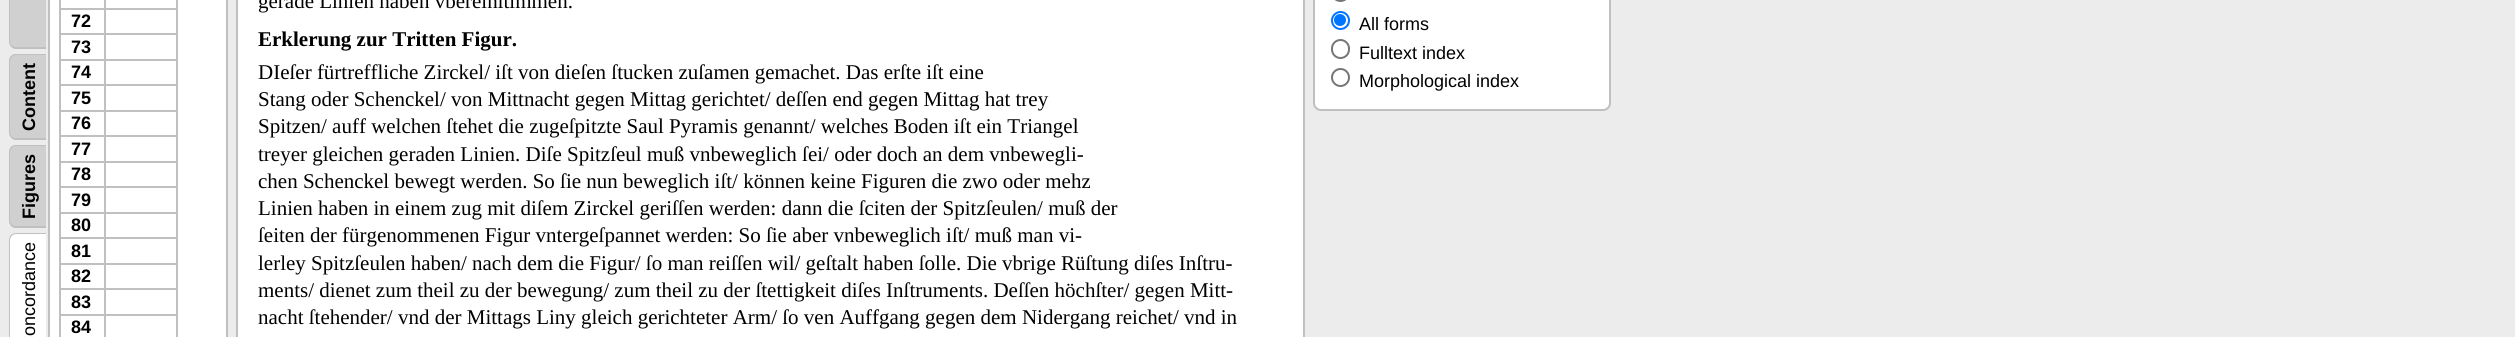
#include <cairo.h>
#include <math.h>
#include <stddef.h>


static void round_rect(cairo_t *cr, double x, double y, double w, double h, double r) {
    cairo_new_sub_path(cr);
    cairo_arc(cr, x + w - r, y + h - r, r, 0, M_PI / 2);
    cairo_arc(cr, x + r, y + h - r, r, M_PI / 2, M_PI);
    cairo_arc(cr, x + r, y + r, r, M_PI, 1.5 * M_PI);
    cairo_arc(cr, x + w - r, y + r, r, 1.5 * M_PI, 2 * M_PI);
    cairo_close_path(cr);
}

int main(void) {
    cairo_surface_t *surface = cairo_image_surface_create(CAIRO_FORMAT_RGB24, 2515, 337);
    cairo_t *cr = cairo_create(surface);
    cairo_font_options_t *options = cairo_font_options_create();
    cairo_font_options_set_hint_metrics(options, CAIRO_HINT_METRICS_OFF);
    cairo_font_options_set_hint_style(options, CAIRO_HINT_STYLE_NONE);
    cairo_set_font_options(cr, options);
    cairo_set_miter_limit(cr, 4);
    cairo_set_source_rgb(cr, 0.922, 0.922, 0.922);
    cairo_paint(cr);
    cairo_set_source_rgb(cr, 0.816, 0.816, 0.816);
    cairo_new_path(cr);
    cairo_move_to(cr, 9, 41);
    cairo_line_to(cr, 9, -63);
    cairo_curve_to(cr, 9, -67, 12, -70, 16, -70);
    cairo_line_to(cr, 46, -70);
    cairo_line_to(cr, 46, 49);
    cairo_line_to(cr, 16, 49);
    cairo_curve_to(cr, 12, 49, 9, 45, 9, 41);
    cairo_close_path(cr);
    cairo_fill(cr);
    cairo_set_source_rgb(cr, 0.753, 0.753, 0.753);
    cairo_set_fill_rule(cr, CAIRO_FILL_RULE_EVEN_ODD);
    cairo_new_path(cr);
    cairo_move_to(cr, 9, 41);
    cairo_line_to(cr, 9, -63);
    cairo_curve_to(cr, 9, -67, 12, -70, 16, -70);
    cairo_line_to(cr, 46, -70);
    cairo_line_to(cr, 46, 49);
    cairo_line_to(cr, 16, 49);
    cairo_curve_to(cr, 12, 49, 9, 45, 9, 41);
    cairo_close_path(cr);
    cairo_move_to(cr, 10, 41);
    cairo_line_to(cr, 10, -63);
    cairo_curve_to(cr, 10, -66, 13, -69, 16, -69);
    cairo_line_to(cr, 46, -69);
    cairo_line_to(cr, 46, 47);
    cairo_line_to(cr, 16, 47);
    cairo_curve_to(cr, 13, 47, 10, 45, 10, 41);
    cairo_close_path(cr);
    cairo_fill(cr);
    cairo_set_source_rgb(cr, 0.816, 0.816, 0.816);
    cairo_set_fill_rule(cr, CAIRO_FILL_RULE_WINDING);
    cairo_new_path(cr);
    cairo_move_to(cr, 9, 132);
    cairo_line_to(cr, 9, 61);
    cairo_curve_to(cr, 9, 57, 12, 54, 16, 54);
    cairo_line_to(cr, 46, 54);
    cairo_line_to(cr, 46, 140);
    cairo_line_to(cr, 16, 140);
    cairo_curve_to(cr, 12, 140, 9, 136, 9, 132);
    cairo_close_path(cr);
    cairo_fill(cr);
    cairo_set_source_rgb(cr, 0.753, 0.753, 0.753);
    cairo_set_fill_rule(cr, CAIRO_FILL_RULE_EVEN_ODD);
    cairo_new_path(cr);
    cairo_move_to(cr, 9, 132);
    cairo_line_to(cr, 9, 61);
    cairo_curve_to(cr, 9, 57, 12, 54, 16, 54);
    cairo_line_to(cr, 46, 54);
    cairo_line_to(cr, 46, 140);
    cairo_line_to(cr, 16, 140);
    cairo_curve_to(cr, 12, 140, 9, 136, 9, 132);
    cairo_close_path(cr);
    cairo_move_to(cr, 10, 132);
    cairo_line_to(cr, 10, 61);
    cairo_curve_to(cr, 10, 58, 13, 55, 16, 55);
    cairo_line_to(cr, 46, 55);
    cairo_line_to(cr, 46, 138);
    cairo_line_to(cr, 16, 138);
    cairo_curve_to(cr, 13, 138, 10, 136, 10, 132);
    cairo_close_path(cr);
    cairo_fill(cr);
    cairo_select_font_face(cr, "Liberation Sans", CAIRO_FONT_SLANT_NORMAL, CAIRO_FONT_WEIGHT_BOLD);
    cairo_set_font_size(cr, 18);
    cairo_set_source_rgb(cr, 0, 0, 0);
    cairo_save(cr);
    cairo_translate(cr, 35, 131);
    cairo_rotate(cr, -90 * M_PI / 180);
    cairo_move_to(cr, 0, 0);
    cairo_show_text(cr, "Content");
    cairo_restore(cr);
    cairo_set_source_rgb(cr, 0.816, 0.816, 0.816);
    cairo_set_fill_rule(cr, CAIRO_FILL_RULE_WINDING);
    cairo_new_path(cr);
    cairo_move_to(cr, 9, 220);
    cairo_line_to(cr, 9, 152);
    cairo_curve_to(cr, 9, 148, 12, 145, 16, 145);
    cairo_line_to(cr, 46, 145);
    cairo_line_to(cr, 46, 228);
    cairo_line_to(cr, 16, 228);
    cairo_curve_to(cr, 12, 228, 9, 225, 9, 220);
    cairo_close_path(cr);
    cairo_fill(cr);
    cairo_set_source_rgb(cr, 0.753, 0.753, 0.753);
    cairo_set_fill_rule(cr, CAIRO_FILL_RULE_EVEN_ODD);
    cairo_new_path(cr);
    cairo_move_to(cr, 9, 220);
    cairo_line_to(cr, 9, 152);
    cairo_curve_to(cr, 9, 148, 12, 145, 16, 145);
    cairo_line_to(cr, 46, 145);
    cairo_line_to(cr, 46, 228);
    cairo_line_to(cr, 16, 228);
    cairo_curve_to(cr, 12, 228, 9, 225, 9, 220);
    cairo_close_path(cr);
    cairo_move_to(cr, 10, 220);
    cairo_line_to(cr, 10, 152);
    cairo_curve_to(cr, 10, 149, 13, 146, 16, 146);
    cairo_line_to(cr, 46, 146);
    cairo_line_to(cr, 46, 226);
    cairo_line_to(cr, 16, 226);
    cairo_curve_to(cr, 13, 226, 10, 224, 10, 220);
    cairo_close_path(cr);
    cairo_fill(cr);
    cairo_set_source_rgb(cr, 0, 0, 0);
    cairo_save(cr);
    cairo_translate(cr, 35, 219);
    cairo_rotate(cr, -90 * M_PI / 180);
    cairo_move_to(cr, 0, 0);
    cairo_show_text(cr, "Figures");
    cairo_restore(cr);
    cairo_set_source_rgb(cr, 1, 1, 1);
    cairo_set_fill_rule(cr, CAIRO_FILL_RULE_WINDING);
    cairo_new_path(cr);
    cairo_move_to(cr, 9, 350);
    cairo_line_to(cr, 9, 240);
    cairo_curve_to(cr, 9, 236, 12, 233, 16, 233);
    cairo_line_to(cr, 46, 233);
    cairo_line_to(cr, 46, 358);
    cairo_line_to(cr, 16, 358);
    cairo_curve_to(cr, 12, 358, 9, 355, 9, 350);
    cairo_close_path(cr);
    cairo_fill(cr);
    cairo_set_source_rgb(cr, 0.753, 0.753, 0.753);
    cairo_set_fill_rule(cr, CAIRO_FILL_RULE_EVEN_ODD);
    cairo_new_path(cr);
    cairo_move_to(cr, 9, 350);
    cairo_line_to(cr, 9, 240);
    cairo_curve_to(cr, 9, 236, 12, 233, 16, 233);
    cairo_line_to(cr, 46, 233);
    cairo_line_to(cr, 46, 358);
    cairo_line_to(cr, 16, 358);
    cairo_curve_to(cr, 12, 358, 9, 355, 9, 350);
    cairo_close_path(cr);
    cairo_move_to(cr, 10, 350);
    cairo_line_to(cr, 10, 240);
    cairo_curve_to(cr, 10, 237, 13, 234, 16, 234);
    cairo_line_to(cr, 46, 234);
    cairo_line_to(cr, 46, 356);
    cairo_line_to(cr, 16, 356);
    cairo_curve_to(cr, 13, 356, 10, 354, 10, 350);
    cairo_close_path(cr);
    cairo_fill(cr);
    cairo_select_font_face(cr, "Liberation Sans", CAIRO_FONT_SLANT_NORMAL, CAIRO_FONT_WEIGHT_NORMAL);
    cairo_set_source_rgb(cr, 0, 0, 0);
    cairo_save(cr);
    cairo_translate(cr, 35, 349);
    cairo_rotate(cr, -90 * M_PI / 180);
    cairo_move_to(cr, 0, 0);
    cairo_show_text(cr, "Concordance");
    cairo_restore(cr);
    cairo_set_source_rgb(cr, 1, 1, 1);
    cairo_rectangle(cr, 49, -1, 178, 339);
    cairo_fill_preserve(cr);
    cairo_set_source_rgb(cr, 0.753, 0.753, 0.753);
    cairo_stroke(cr);
    cairo_rectangle(cr, 104, 8, 73, 2);
    cairo_fill(cr);
    cairo_rectangle(cr, 104, 33, 73, 2);
    cairo_fill(cr);
    cairo_rectangle(cr, 104, 59, 73, 2);
    cairo_fill(cr);
    cairo_rectangle(cr, 104, 84, 73, 2);
    cairo_fill(cr);
    cairo_rectangle(cr, 104, 110, 73, 2);
    cairo_fill(cr);
    cairo_rectangle(cr, 104, 135, 73, 2);
    cairo_fill(cr);
    cairo_rectangle(cr, 104, 161, 73, 2);
    cairo_fill(cr);
    cairo_rectangle(cr, 104, 186, 73, 2);
    cairo_fill(cr);
    cairo_rectangle(cr, 104, 212, 73, 2);
    cairo_fill(cr);
    cairo_rectangle(cr, 104, 237, 73, 2);
    cairo_fill(cr);
    cairo_rectangle(cr, 104, 263, 73, 2);
    cairo_fill(cr);
    cairo_rectangle(cr, 104, 288, 73, 2);
    cairo_fill(cr);
    cairo_rectangle(cr, 104, 314, 73, 2);
    cairo_fill(cr);
    cairo_rectangle(cr, 104, 314, 2, 23);
    cairo_fill(cr);
    cairo_rectangle(cr, 59, 314, 46, 2);
    cairo_fill(cr);
    cairo_rectangle(cr, 104, 288, 2, 27);
    cairo_fill(cr);
    cairo_rectangle(cr, 59, 288, 46, 2);
    cairo_fill(cr);
    cairo_rectangle(cr, 104, 263, 2, 27);
    cairo_fill(cr);
    cairo_rectangle(cr, 59, 263, 46, 2);
    cairo_fill(cr);
    cairo_rectangle(cr, 104, 237, 2, 27);
    cairo_fill(cr);
    cairo_rectangle(cr, 59, 237, 46, 2);
    cairo_fill(cr);
    cairo_rectangle(cr, 104, 212, 2, 27);
    cairo_fill(cr);
    cairo_rectangle(cr, 59, 212, 46, 2);
    cairo_fill(cr);
    cairo_rectangle(cr, 104, 186, 2, 27);
    cairo_fill(cr);
    cairo_rectangle(cr, 59, 186, 46, 2);
    cairo_fill(cr);
    cairo_rectangle(cr, 104, 161, 2, 27);
    cairo_fill(cr);
    cairo_rectangle(cr, 59, 161, 46, 2);
    cairo_fill(cr);
    cairo_rectangle(cr, 104, 135, 2, 27);
    cairo_fill(cr);
    cairo_rectangle(cr, 59, 135, 46, 2);
    cairo_fill(cr);
    cairo_rectangle(cr, 104, 110, 2, 27);
    cairo_fill(cr);
    cairo_rectangle(cr, 59, 110, 46, 2);
    cairo_fill(cr);
    cairo_rectangle(cr, 104, 84, 2, 27);
    cairo_fill(cr);
    cairo_rectangle(cr, 59, 84, 46, 2);
    cairo_fill(cr);
    cairo_rectangle(cr, 104, 59, 2, 27);
    cairo_fill(cr);
    cairo_rectangle(cr, 59, 59, 46, 2);
    cairo_fill(cr);
    cairo_rectangle(cr, 104, 33, 2, 27);
    cairo_fill(cr);
    cairo_rectangle(cr, 59, 33, 46, 2);
    cairo_fill(cr);
    cairo_rectangle(cr, 104, 8, 2, 27);
    cairo_fill(cr);
    cairo_rectangle(cr, 59, 8, 46, 2);
    cairo_fill(cr);
    cairo_rectangle(cr, 104, 0, 2, 9);
    cairo_fill(cr);
    cairo_rectangle(cr, 59, 314, 2, 23);
    cairo_fill(cr);
    cairo_rectangle(cr, 59, 288, 2, 27);
    cairo_fill(cr);
    cairo_rectangle(cr, 59, 263, 2, 27);
    cairo_fill(cr);
    cairo_rectangle(cr, 59, 237, 2, 27);
    cairo_fill(cr);
    cairo_rectangle(cr, 59, 212, 2, 27);
    cairo_fill(cr);
    cairo_rectangle(cr, 59, 186, 2, 27);
    cairo_fill(cr);
    cairo_rectangle(cr, 59, 161, 2, 27);
    cairo_fill(cr);
    cairo_rectangle(cr, 59, 135, 2, 27);
    cairo_fill(cr);
    cairo_rectangle(cr, 59, 110, 2, 27);
    cairo_fill(cr);
    cairo_rectangle(cr, 59, 84, 2, 27);
    cairo_fill(cr);
    cairo_rectangle(cr, 59, 59, 2, 27);
    cairo_fill(cr);
    cairo_rectangle(cr, 59, 33, 2, 27);
    cairo_fill(cr);
    cairo_rectangle(cr, 59, 0, 2, 35);
    cairo_fill(cr);
    cairo_select_font_face(cr, "Liberation Sans", CAIRO_FONT_SLANT_NORMAL, CAIRO_FONT_WEIGHT_BOLD);
    cairo_set_source_rgb(cr, 0, 0, 0);
    cairo_move_to(cr, 71, 27);
    cairo_show_text(cr, "72");
    cairo_set_source_rgb(cr, 0.753, 0.753, 0.753);
    cairo_rectangle(cr, 176, 314, 2, 23);
    cairo_fill(cr);
    cairo_rectangle(cr, 176, 288, 2, 27);
    cairo_fill(cr);
    cairo_rectangle(cr, 176, 263, 2, 27);
    cairo_fill(cr);
    cairo_rectangle(cr, 176, 237, 2, 27);
    cairo_fill(cr);
    cairo_rectangle(cr, 176, 212, 2, 27);
    cairo_fill(cr);
    cairo_rectangle(cr, 176, 186, 2, 27);
    cairo_fill(cr);
    cairo_rectangle(cr, 176, 161, 2, 27);
    cairo_fill(cr);
    cairo_rectangle(cr, 176, 135, 2, 27);
    cairo_fill(cr);
    cairo_rectangle(cr, 176, 110, 2, 27);
    cairo_fill(cr);
    cairo_rectangle(cr, 176, 84, 2, 27);
    cairo_fill(cr);
    cairo_rectangle(cr, 176, 59, 2, 27);
    cairo_fill(cr);
    cairo_rectangle(cr, 176, 33, 2, 27);
    cairo_fill(cr);
    cairo_rectangle(cr, 176, 0, 2, 35);
    cairo_fill(cr);
    cairo_set_source_rgb(cr, 0, 0, 0);
    cairo_move_to(cr, 71, 53);
    cairo_show_text(cr, "73");
    cairo_move_to(cr, 71, 78);
    cairo_show_text(cr, "74");
    cairo_move_to(cr, 71, 104);
    cairo_show_text(cr, "75");
    cairo_move_to(cr, 71, 129);
    cairo_show_text(cr, "76");
    cairo_move_to(cr, 71, 155);
    cairo_show_text(cr, "77");
    cairo_move_to(cr, 71, 180);
    cairo_show_text(cr, "78");
    cairo_move_to(cr, 71, 206);
    cairo_show_text(cr, "79");
    cairo_move_to(cr, 71, 231);
    cairo_show_text(cr, "80");
    cairo_move_to(cr, 71, 257);
    cairo_show_text(cr, "81");
    cairo_move_to(cr, 71, 282);
    cairo_show_text(cr, "82");
    cairo_move_to(cr, 71, 308);
    cairo_show_text(cr, "83");
    cairo_move_to(cr, 71, 333);
    cairo_show_text(cr, "84");
    cairo_set_source_rgb(cr, 1, 1, 1);
    cairo_rectangle(cr, 237, -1, 1067, 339);
    cairo_fill_preserve(cr);
    cairo_set_source_rgb(cr, 0.753, 0.753, 0.753);
    cairo_stroke(cr);
    cairo_select_font_face(cr, "Liberation Serif", CAIRO_FONT_SLANT_NORMAL, CAIRO_FONT_WEIGHT_NORMAL);
    cairo_set_font_size(cr, 21);
    cairo_set_source_rgb(cr, 0, 0, 0);
    cairo_move_to(cr, 258, 8);
    cairo_show_text(cr, "gerade Linien haben vbereinſtimmen.");
    cairo_select_font_face(cr, "Liberation Serif", CAIRO_FONT_SLANT_NORMAL, CAIRO_FONT_WEIGHT_BOLD);
    cairo_move_to(cr, 258, 46);
    cairo_show_text(cr, "Erklerung zur Tritten Figur.");
    cairo_select_font_face(cr, "Liberation Serif", CAIRO_FONT_SLANT_NORMAL, CAIRO_FONT_WEIGHT_NORMAL);
    cairo_move_to(cr, 258, 79);
    cairo_show_text(cr, "DIeſer fürtreffliche Zirckel/ iſt von dieſen ſtucken zuſamen gemachet. Das erſte iſt eine");
    cairo_move_to(cr, 258, 106);
    cairo_show_text(cr, "Stang oder Schenckel/ von Mittnacht gegen Mittag gerichtet/ deſſen end gegen Mittag hat trey");
    cairo_move_to(cr, 258, 133);
    cairo_show_text(cr, "Spitzen/ auff welchen ſtehet die zugeſpitzte Saul Pyramis genannt/ welches Boden iſt ein Triangel");
    cairo_move_to(cr, 258, 161);
    cairo_show_text(cr, "treyer gleichen geraden Linien. Diſe Spitzſeul muß vnbeweglich ſei/ oder doch an dem vnbewegli-");
    cairo_move_to(cr, 258, 188);
    cairo_show_text(cr, "chen Schenckel bewegt werden. So ſie nun beweglich iſt/ können keine Figuren die zwo oder mehz");
    cairo_move_to(cr, 258, 215);
    cairo_show_text(cr, "Linien haben in einem zug mit diſem Zirckel geriſſen werden: dann die ſciten der Spitzſeulen/ muß der");
    cairo_move_to(cr, 258, 242);
    cairo_show_text(cr, "ſeiten der fürgenommenen Figur vntergeſpannet werden: So ſie aber vnbeweglich iſt/ muß man vi-");
    cairo_move_to(cr, 258, 270);
    cairo_show_text(cr, "lerley Spitzſeulen haben/ nach dem die Figur/ ſo man reiſſen wil/ geſtalt haben ſolle. Die vbrige Rüſtung diſes Inſtru-");
    cairo_move_to(cr, 258, 297);
    cairo_show_text(cr, "ments/ dienet zum theil zu der bewegung/ zum theil zu der ſtettigkeit diſes Inſtruments. Deſſen höchſter/ gegen Mitt-");
    cairo_move_to(cr, 258, 324);
    cairo_show_text(cr, "nacht ſtehender/ vnd der Mittags Liny gleich gerichteter Arm/ ſo ven Auffgang gegen dem Nidergang reichet/ vnd in");
    cairo_set_source_rgb(cr, 1, 1, 1);
    round_rect(cr, 1314, -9, 296, 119, 7);
    cairo_fill_preserve(cr);
    cairo_set_source_rgb(cr, 0.753, 0.753, 0.753);
    cairo_stroke(cr);
    round_rect(cr, 1332, -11, 17, 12, 8.5);
    cairo_set_source_rgb(cr, 0.463, 0.463, 0.463);
    cairo_stroke(cr);
    cairo_arc(cr, 1340.5, 20.5, 8.5, 0, 2 * M_PI);
    cairo_set_source_rgb(cr, 0, 0.459, 1);
    cairo_stroke(cr);
    cairo_arc(cr, 1340, 20, 6, 0, 2 * M_PI);
    cairo_fill(cr);
    cairo_select_font_face(cr, "Liberation Sans", CAIRO_FONT_SLANT_NORMAL, CAIRO_FONT_WEIGHT_NORMAL);
    cairo_set_font_size(cr, 18);
    cairo_set_source_rgb(cr, 0, 0, 0);
    cairo_move_to(cr, 1359, 30);
    cairo_show_text(cr, "All forms");
    round_rect(cr, 1332, 40, 17, 18, 8.5);
    cairo_set_source_rgb(cr, 0.463, 0.463, 0.463);
    cairo_stroke(cr);
    cairo_set_source_rgb(cr, 0, 0, 0);
    cairo_move_to(cr, 1359, 59);
    cairo_show_text(cr, "Fulltext index");
    cairo_new_path(cr);
    cairo_arc(cr, 1340.5, 77.5, 8.5, 0, 2 * M_PI);
    cairo_set_source_rgb(cr, 0.463, 0.463, 0.463);
    cairo_stroke(cr);
    cairo_set_source_rgb(cr, 0, 0, 0);
    cairo_move_to(cr, 1359, 87);
    cairo_show_text(cr, "Morphological index");
    cairo_surface_write_to_png(surface, "page.png");
    cairo_font_options_destroy(options);
    cairo_destroy(cr);
    cairo_surface_destroy(surface);
    return 0;
}
